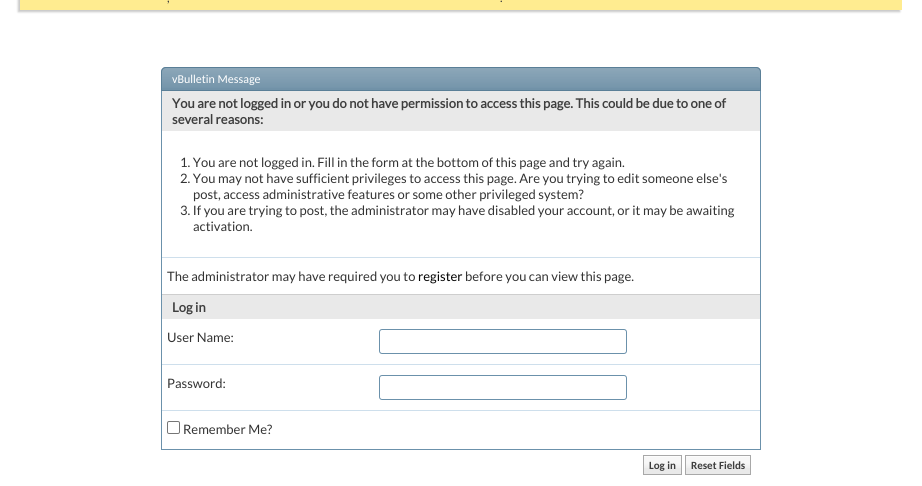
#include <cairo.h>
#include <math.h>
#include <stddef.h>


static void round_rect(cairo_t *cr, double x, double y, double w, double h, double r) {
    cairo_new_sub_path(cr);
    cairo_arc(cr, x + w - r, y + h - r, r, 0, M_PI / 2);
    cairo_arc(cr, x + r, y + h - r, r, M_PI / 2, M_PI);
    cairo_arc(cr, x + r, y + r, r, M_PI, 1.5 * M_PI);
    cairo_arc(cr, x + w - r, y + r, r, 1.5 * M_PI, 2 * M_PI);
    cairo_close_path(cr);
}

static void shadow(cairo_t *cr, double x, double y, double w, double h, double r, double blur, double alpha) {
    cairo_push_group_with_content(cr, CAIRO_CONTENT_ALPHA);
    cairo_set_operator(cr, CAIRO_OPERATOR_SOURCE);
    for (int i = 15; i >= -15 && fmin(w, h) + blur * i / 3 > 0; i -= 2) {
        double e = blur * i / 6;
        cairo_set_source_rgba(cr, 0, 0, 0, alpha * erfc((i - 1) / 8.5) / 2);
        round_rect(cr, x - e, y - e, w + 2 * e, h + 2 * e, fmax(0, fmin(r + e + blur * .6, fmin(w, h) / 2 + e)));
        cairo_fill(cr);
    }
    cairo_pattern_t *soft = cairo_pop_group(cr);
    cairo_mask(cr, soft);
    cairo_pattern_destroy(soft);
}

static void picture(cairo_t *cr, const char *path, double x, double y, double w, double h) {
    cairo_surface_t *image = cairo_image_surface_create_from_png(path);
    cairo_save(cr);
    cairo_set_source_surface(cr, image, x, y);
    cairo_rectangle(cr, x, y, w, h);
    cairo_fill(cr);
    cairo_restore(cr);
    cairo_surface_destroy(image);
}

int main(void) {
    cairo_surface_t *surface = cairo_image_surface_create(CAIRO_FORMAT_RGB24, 922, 486);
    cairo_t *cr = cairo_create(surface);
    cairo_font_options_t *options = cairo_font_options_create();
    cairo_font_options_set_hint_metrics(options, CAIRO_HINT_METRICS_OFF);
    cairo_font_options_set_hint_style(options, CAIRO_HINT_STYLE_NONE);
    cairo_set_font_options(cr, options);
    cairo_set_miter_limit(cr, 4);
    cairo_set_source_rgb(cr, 1, 1, 1);
    cairo_paint(cr);
    cairo_set_source_rgb(cr, 0.784, 0.784, 0.784);
    shadow(cr, 18, -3, 882, 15, 0, 1, 1);
    cairo_set_source_rgb(cr, 1, 0.922, 0.565);
    cairo_rectangle(cr, 20, 0, 882, 10);
    cairo_fill(cr);
    cairo_select_font_face(cr, "Lato", CAIRO_FONT_SLANT_NORMAL, CAIRO_FONT_WEIGHT_NORMAL);
    cairo_set_font_size(cr, 12);
    cairo_set_source_rgb(cr, 0.243, 0.243, 0.243);
    cairo_move_to(cr, 167, 2);
    cairo_show_text(cr, ",");
    cairo_move_to(cr, 500, 2);
    cairo_show_text(cr, ".");
    cairo_set_source_rgb(cr, 0.443, 0.573, 0.659);
    cairo_new_path(cr);
    cairo_move_to(cr, 166, 67);
    cairo_line_to(cr, 756, 67);
    cairo_curve_to(cr, 759, 67, 761, 69, 761, 72);
    cairo_line_to(cr, 761, 91);
    cairo_line_to(cr, 161, 91);
    cairo_line_to(cr, 161, 72);
    cairo_curve_to(cr, 161, 69, 163, 67, 166, 67);
    cairo_close_path(cr);
    cairo_fill(cr);
    picture(cr, "img1.png", 161, 68, 600, 20);
    cairo_new_path(cr);
    cairo_move_to(cr, 166, 67.5);
    cairo_line_to(cr, 756, 67.5);
    cairo_curve_to(cr, 758.5, 67.5, 760.5, 69.5, 760.5, 72);
    cairo_line_to(cr, 760.5, 90.5);
    cairo_line_to(cr, 161.5, 90.5);
    cairo_line_to(cr, 161.5, 72);
    cairo_curve_to(cr, 161.5, 69.5, 163.5, 67.5, 166, 67.5);
    cairo_close_path(cr);
    cairo_set_source_rgb(cr, 0.353, 0.498, 0.592);
    cairo_set_line_width(cr, 1);
    cairo_stroke(cr);
    cairo_select_font_face(cr, "Carlito", CAIRO_FONT_SLANT_NORMAL, CAIRO_FONT_WEIGHT_NORMAL);
    cairo_set_source_rgb(cr, 1, 1, 1);
    cairo_move_to(cr, 172, 83);
    cairo_show_text(cr, "vBulletin Message");
    cairo_set_source_rgb(cr, 0.42, 0.569, 0.671);
    cairo_rectangle(cr, 760, 91, 1, 359);
    cairo_fill(cr);
    cairo_rectangle(cr, 161, 449, 600, 1);
    cairo_fill(cr);
    cairo_rectangle(cr, 161, 91, 1, 359);
    cairo_fill(cr);
    cairo_set_source_rgb(cr, 0.914, 0.914, 0.914);
    cairo_rectangle(cr, 162, 91, 598, 40);
    cairo_fill(cr);
    cairo_select_font_face(cr, "Lato", CAIRO_FONT_SLANT_NORMAL, CAIRO_FONT_WEIGHT_BOLD);
    cairo_set_font_size(cr, 13);
    cairo_set_source_rgb(cr, 0.243, 0.243, 0.243);
    cairo_move_to(cr, 172, 108);
    cairo_show_text(cr, "You are not logged in or you do not have permission to access this page. This could be due to one of");
    cairo_move_to(cr, 172, 124);
    cairo_show_text(cr, "several reasons:");
    cairo_select_font_face(cr, "Lato", CAIRO_FONT_SLANT_NORMAL, CAIRO_FONT_WEIGHT_NORMAL);
    cairo_set_source_rgb(cr, 0.2, 0.2, 0.2);
    cairo_move_to(cr, 180, 167);
    cairo_show_text(cr, "1. You are not logged in. Fill in the form at the bottom of this page and try again.");
    cairo_move_to(cr, 180, 183);
    cairo_show_text(cr, "2. You may not have sufficient privileges to access this page. Are you trying to edit someone else's");
    cairo_move_to(cr, 193, 199);
    cairo_show_text(cr, "post, access administrative features or some other privileged system?");
    cairo_move_to(cr, 180, 215);
    cairo_show_text(cr, "3. If you are trying to post, the administrator may have disabled your account, or it may be awaiting");
    cairo_move_to(cr, 193, 231);
    cairo_show_text(cr, "activation.");
    cairo_set_source_rgb(cr, 0.808, 0.875, 0.922);
    cairo_rectangle(cr, 162, 257, 598, 1);
    cairo_fill(cr);
    cairo_set_source_rgb(cr, 0.2, 0.2, 0.2);
    cairo_move_to(cr, 167, 281);
    cairo_show_text(cr, "The administrator may have required you to");
    cairo_set_source_rgb(cr, 0, 0, 0);
    cairo_move_to(cr, 418, 281);
    cairo_show_text(cr, "register");
    cairo_set_source_rgb(cr, 0.2, 0.2, 0.2);
    cairo_move_to(cr, 465, 281);
    cairo_show_text(cr, "before you can view this page.");
    cairo_set_source_rgb(cr, 0.914, 0.914, 0.914);
    cairo_rectangle(cr, 162, 295, 598, 24);
    cairo_fill(cr);
    cairo_set_source_rgb(cr, 0.808, 0.808, 0.808);
    cairo_rectangle(cr, 162, 294, 598, 1);
    cairo_fill(cr);
    cairo_select_font_face(cr, "Lato", CAIRO_FONT_SLANT_NORMAL, CAIRO_FONT_WEIGHT_BOLD);
    cairo_set_source_rgb(cr, 0.243, 0.243, 0.243);
    cairo_move_to(cr, 172, 312);
    cairo_show_text(cr, "Log in");
    cairo_select_font_face(cr, "Lato", CAIRO_FONT_SLANT_NORMAL, CAIRO_FONT_WEIGHT_NORMAL);
    cairo_set_source_rgb(cr, 0.2, 0.2, 0.2);
    cairo_move_to(cr, 167, 342);
    cairo_show_text(cr, "User Name:");
    round_rect(cr, 379.5, 329.5, 247, 24, 2.5);
    cairo_set_source_rgb(cr, 0.42, 0.569, 0.671);
    cairo_stroke(cr);
    cairo_set_source_rgb(cr, 0.808, 0.875, 0.922);
    cairo_rectangle(cr, 162, 364, 598, 1);
    cairo_fill(cr);
    cairo_set_source_rgb(cr, 0.2, 0.2, 0.2);
    cairo_move_to(cr, 167, 388);
    cairo_show_text(cr, "Password:");
    round_rect(cr, 379.5, 375.5, 247, 24, 2.5);
    cairo_set_source_rgb(cr, 0.42, 0.569, 0.671);
    cairo_stroke(cr);
    cairo_set_source_rgb(cr, 0.808, 0.875, 0.922);
    cairo_rectangle(cr, 162, 410, 598, 1);
    cairo_fill(cr);
    round_rect(cr, 167.5, 421.5, 12, 12, 1.5);
    cairo_set_source_rgb(cr, 0.463, 0.463, 0.463);
    cairo_stroke(cr);
    cairo_set_source_rgb(cr, 0.2, 0.2, 0.2);
    cairo_move_to(cr, 183, 434);
    cairo_show_text(cr, "Remember Me?");
    cairo_set_source_rgb(cr, 0.914, 0.914, 0.914);
    cairo_rectangle(cr, 644, 456, 37, 18);
    cairo_fill(cr);
    picture(cr, "img2.png", 644, 456, 37, 12);
    cairo_rectangle(cr, 643.5, 455.5, 38, 19);
    cairo_set_source_rgb(cr, 0.659, 0.659, 0.659);
    cairo_stroke(cr);
    cairo_select_font_face(cr, "Carlito", CAIRO_FONT_SLANT_NORMAL, CAIRO_FONT_WEIGHT_BOLD);
    cairo_set_font_size(cr, 11);
    cairo_set_source_rgb(cr, 0.243, 0.243, 0.243);
    cairo_move_to(cr, 649, 469);
    cairo_show_text(cr, "Log in");
    cairo_set_source_rgb(cr, 0.914, 0.914, 0.914);
    cairo_rectangle(cr, 686, 456, 64, 18);
    cairo_fill(cr);
    picture(cr, "img3.png", 686, 456, 64, 12);
    cairo_rectangle(cr, 685.5, 455.5, 65, 19);
    cairo_set_source_rgb(cr, 0.659, 0.659, 0.659);
    cairo_stroke(cr);
    cairo_set_source_rgb(cr, 0.243, 0.243, 0.243);
    cairo_move_to(cr, 691, 469);
    cairo_show_text(cr, "Reset Fields");
    cairo_surface_write_to_png(surface, "page.png");
    cairo_font_options_destroy(options);
    cairo_destroy(cr);
    cairo_surface_destroy(surface);
    return 0;
}
